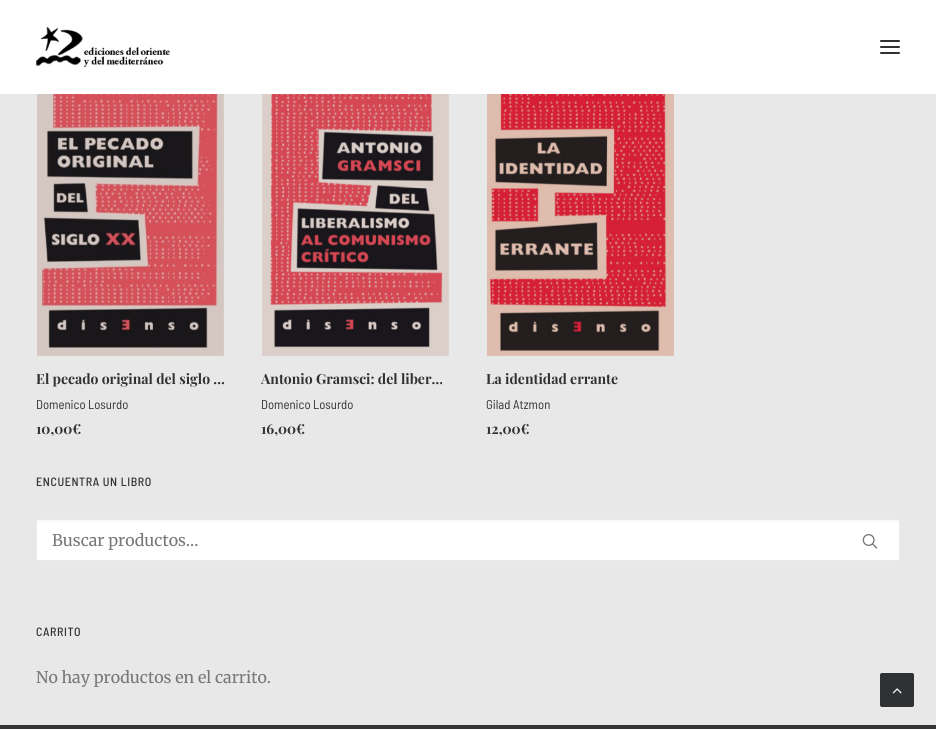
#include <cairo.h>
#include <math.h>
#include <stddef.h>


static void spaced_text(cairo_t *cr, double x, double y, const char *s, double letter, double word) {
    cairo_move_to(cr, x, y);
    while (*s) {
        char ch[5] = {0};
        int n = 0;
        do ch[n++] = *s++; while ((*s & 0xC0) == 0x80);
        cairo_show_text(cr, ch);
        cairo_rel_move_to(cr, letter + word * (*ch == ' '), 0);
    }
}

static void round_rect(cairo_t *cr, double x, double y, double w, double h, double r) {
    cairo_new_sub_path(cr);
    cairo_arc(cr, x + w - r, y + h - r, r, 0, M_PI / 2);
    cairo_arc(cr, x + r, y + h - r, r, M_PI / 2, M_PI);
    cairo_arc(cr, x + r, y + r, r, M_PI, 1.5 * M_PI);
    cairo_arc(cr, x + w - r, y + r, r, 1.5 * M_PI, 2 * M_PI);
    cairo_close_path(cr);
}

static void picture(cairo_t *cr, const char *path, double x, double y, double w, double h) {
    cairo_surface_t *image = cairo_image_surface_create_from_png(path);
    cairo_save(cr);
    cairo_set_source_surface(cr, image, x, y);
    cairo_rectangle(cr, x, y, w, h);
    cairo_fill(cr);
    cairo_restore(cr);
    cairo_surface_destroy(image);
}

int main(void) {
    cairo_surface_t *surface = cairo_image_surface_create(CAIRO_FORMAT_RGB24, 936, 729);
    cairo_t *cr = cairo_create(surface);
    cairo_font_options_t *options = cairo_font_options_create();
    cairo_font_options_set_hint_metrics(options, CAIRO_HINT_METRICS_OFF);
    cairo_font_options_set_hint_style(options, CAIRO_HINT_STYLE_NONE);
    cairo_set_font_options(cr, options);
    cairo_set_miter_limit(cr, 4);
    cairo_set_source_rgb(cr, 0.91, 0.91, 0.91);
    cairo_paint(cr);
    cairo_set_source_rgb(cr, 1, 1, 1);
    cairo_rectangle(cr, 0, 0, 936, 94);
    cairo_fill(cr);
    picture(cr, "img1.png", 36, 27, 134, 40);
    cairo_set_source_rgb(cr, 0.188, 0.192, 0.2);
    round_rect(cr, 880, 46, 20, 2, 1);
    cairo_fill(cr);
    round_rect(cr, 880, 40, 20, 2, 1);
    cairo_fill(cr);
    round_rect(cr, 880, 52, 20, 2, 1);
    cairo_fill(cr);
    picture(cr, "img2.png", 37, 94, 187, 262);
    cairo_select_font_face(cr, "Playfair Display", CAIRO_FONT_SLANT_NORMAL, CAIRO_FONT_WEIGHT_BOLD);
    cairo_set_font_size(cr, 14);
    cairo_move_to(cr, 36, 384);
    cairo_show_text(cr, "El pecado original del siglo …");
    cairo_select_font_face(cr, "Barlow Semi Condensed", CAIRO_FONT_SLANT_NORMAL, CAIRO_FONT_WEIGHT_NORMAL);
    cairo_set_font_size(cr, 12.75);
    cairo_move_to(cr, 36, 409);
    cairo_show_text(cr, "Domenico Losurdo");
    cairo_select_font_face(cr, "Playfair Display", CAIRO_FONT_SLANT_NORMAL, CAIRO_FONT_WEIGHT_BOLD);
    cairo_set_font_size(cr, 14);
    cairo_move_to(cr, 36, 434);
    cairo_show_text(cr, "10,00€");
    picture(cr, "img3.png", 262, 94, 187, 262);
    cairo_move_to(cr, 261, 384);
    cairo_show_text(cr, "Antonio Gramsci: del liber…");
    cairo_select_font_face(cr, "Barlow Semi Condensed", CAIRO_FONT_SLANT_NORMAL, CAIRO_FONT_WEIGHT_NORMAL);
    cairo_set_font_size(cr, 12.75);
    cairo_move_to(cr, 261, 409);
    cairo_show_text(cr, "Domenico Losurdo");
    cairo_select_font_face(cr, "Playfair Display", CAIRO_FONT_SLANT_NORMAL, CAIRO_FONT_WEIGHT_BOLD);
    cairo_set_font_size(cr, 14);
    cairo_move_to(cr, 261, 434);
    cairo_show_text(cr, "16,00€");
    picture(cr, "img4.png", 487, 94, 187, 262);
    cairo_move_to(cr, 486, 384);
    cairo_show_text(cr, "La identidad errante");
    cairo_select_font_face(cr, "Barlow Semi Condensed", CAIRO_FONT_SLANT_NORMAL, CAIRO_FONT_WEIGHT_NORMAL);
    cairo_set_font_size(cr, 12.75);
    cairo_move_to(cr, 486, 409);
    cairo_show_text(cr, "Gilad Atzmon");
    cairo_select_font_face(cr, "Playfair Display", CAIRO_FONT_SLANT_NORMAL, CAIRO_FONT_WEIGHT_BOLD);
    cairo_set_font_size(cr, 14);
    cairo_move_to(cr, 486, 434);
    cairo_show_text(cr, "12,00€");
    cairo_select_font_face(cr, "Barlow Semi Condensed Medium", CAIRO_FONT_SLANT_NORMAL, CAIRO_FONT_WEIGHT_NORMAL);
    cairo_set_font_size(cr, 12);
    spaced_text(cr, 36, 486, "ENCUENTRA UN LIBRO", 0.6, 0);
    cairo_set_source_rgb(cr, 1, 1, 1);
    round_rect(cr, 36, 519, 864, 42, 2);
    cairo_fill(cr);
    cairo_set_source_rgb(cr, 0.976, 0.976, 0.976);
    cairo_new_path(cr);
    cairo_move_to(cr, 38, 522);
    cairo_line_to(cr, 898, 522);
    cairo_curve_to(cr, 899, 522, 899, 522, 899, 523);
    cairo_line_to(cr, 899, 520);
    cairo_line_to(cr, 468, 520);
    cairo_line_to(cr, 38, 520);
    cairo_line_to(cr, 37, 521);
    cairo_line_to(cr, 37, 523);
    cairo_curve_to(cr, 37, 522, 37, 522, 38, 522);
    cairo_close_path(cr);
    cairo_fill(cr);
    round_rect(cr, 36.5, 519.5, 863, 41, 1.5);
    cairo_set_source_rgb(cr, 0.918, 0.918, 0.918);
    cairo_set_line_width(cr, 1);
    cairo_stroke(cr);
    cairo_select_font_face(cr, "Merriweather", CAIRO_FONT_SLANT_NORMAL, CAIRO_FONT_WEIGHT_NORMAL);
    cairo_set_font_size(cr, 16);
    cairo_set_source_rgb(cr, 0.467, 0.467, 0.467);
    cairo_move_to(cr, 52, 546);
    cairo_show_text(cr, "Buscar productos…");
    picture(cr, "img5.png", 862, 534, 16, 15);
    cairo_select_font_face(cr, "Barlow Semi Condensed Medium", CAIRO_FONT_SLANT_NORMAL, CAIRO_FONT_WEIGHT_NORMAL);
    cairo_set_font_size(cr, 12);
    cairo_set_source_rgb(cr, 0.188, 0.192, 0.2);
    spaced_text(cr, 36, 636, "CARRITO", 0.6, 0);
    cairo_select_font_face(cr, "Merriweather", CAIRO_FONT_SLANT_NORMAL, CAIRO_FONT_WEIGHT_NORMAL);
    cairo_set_font_size(cr, 16);
    cairo_set_source_rgb(cr, 0.467, 0.467, 0.467);
    cairo_move_to(cr, 36, 683);
    cairo_show_text(cr, "No hay productos en el carrito.");
    cairo_set_source_rgb(cr, 0.208, 0.208, 0.208);
    cairo_rectangle(cr, 0, 725, 936, 4);
    cairo_fill(cr);
    cairo_set_source_rgb(cr, 0.188, 0.192, 0.2);
    round_rect(cr, 880.5, 673.5, 33, 33, 1.5);
    cairo_fill_preserve(cr);
    cairo_stroke(cr);
    picture(cr, "img6.png", 892, 688, 10, 6);
    cairo_surface_write_to_png(surface, "page.png");
    cairo_font_options_destroy(options);
    cairo_destroy(cr);
    cairo_surface_destroy(surface);
    return 0;
}
